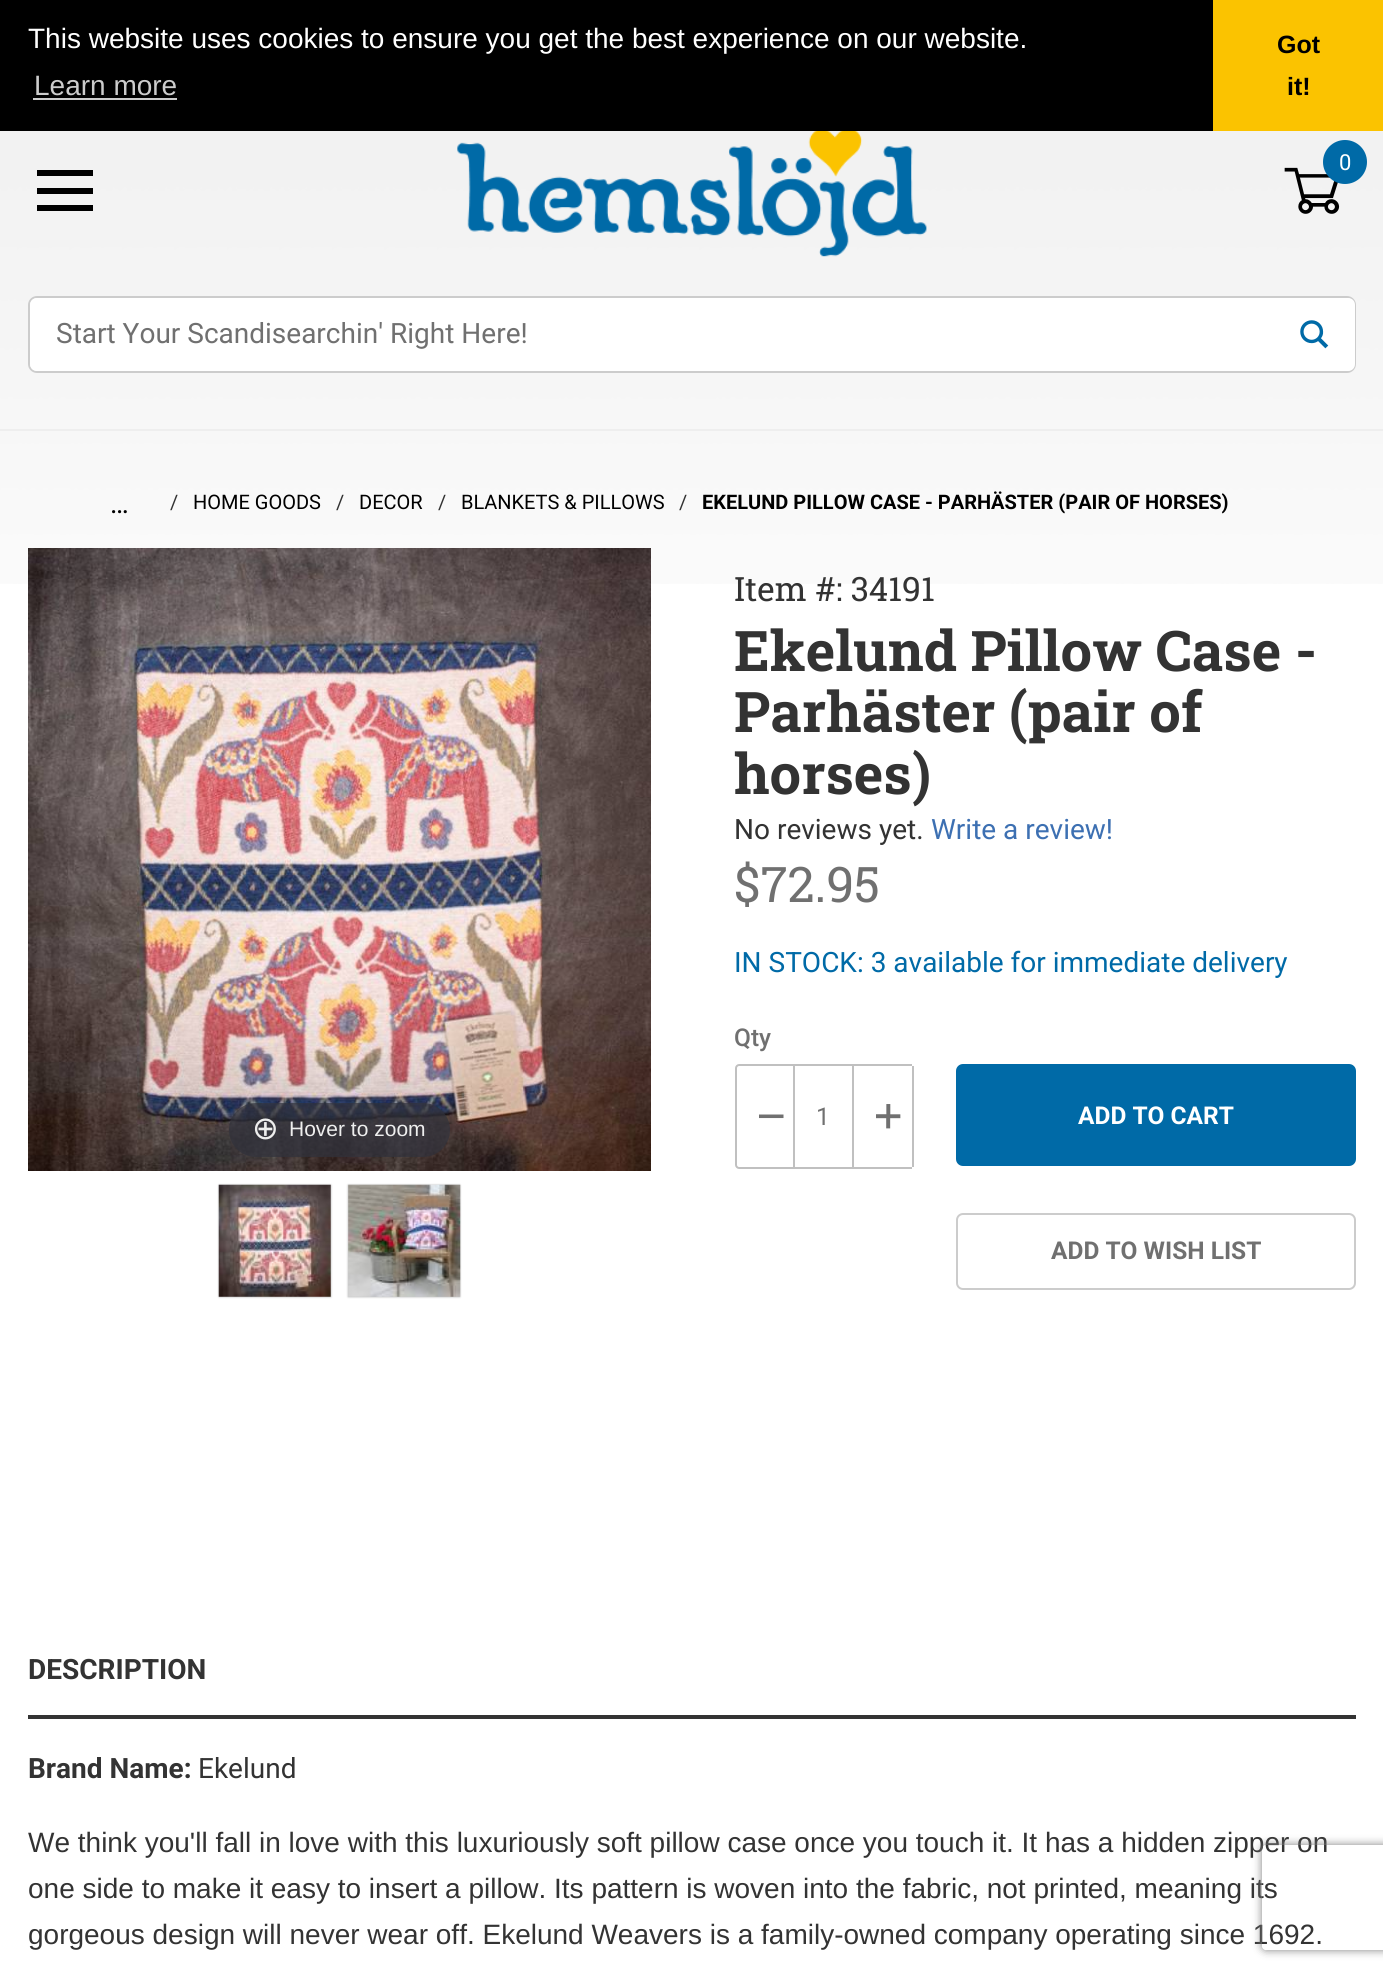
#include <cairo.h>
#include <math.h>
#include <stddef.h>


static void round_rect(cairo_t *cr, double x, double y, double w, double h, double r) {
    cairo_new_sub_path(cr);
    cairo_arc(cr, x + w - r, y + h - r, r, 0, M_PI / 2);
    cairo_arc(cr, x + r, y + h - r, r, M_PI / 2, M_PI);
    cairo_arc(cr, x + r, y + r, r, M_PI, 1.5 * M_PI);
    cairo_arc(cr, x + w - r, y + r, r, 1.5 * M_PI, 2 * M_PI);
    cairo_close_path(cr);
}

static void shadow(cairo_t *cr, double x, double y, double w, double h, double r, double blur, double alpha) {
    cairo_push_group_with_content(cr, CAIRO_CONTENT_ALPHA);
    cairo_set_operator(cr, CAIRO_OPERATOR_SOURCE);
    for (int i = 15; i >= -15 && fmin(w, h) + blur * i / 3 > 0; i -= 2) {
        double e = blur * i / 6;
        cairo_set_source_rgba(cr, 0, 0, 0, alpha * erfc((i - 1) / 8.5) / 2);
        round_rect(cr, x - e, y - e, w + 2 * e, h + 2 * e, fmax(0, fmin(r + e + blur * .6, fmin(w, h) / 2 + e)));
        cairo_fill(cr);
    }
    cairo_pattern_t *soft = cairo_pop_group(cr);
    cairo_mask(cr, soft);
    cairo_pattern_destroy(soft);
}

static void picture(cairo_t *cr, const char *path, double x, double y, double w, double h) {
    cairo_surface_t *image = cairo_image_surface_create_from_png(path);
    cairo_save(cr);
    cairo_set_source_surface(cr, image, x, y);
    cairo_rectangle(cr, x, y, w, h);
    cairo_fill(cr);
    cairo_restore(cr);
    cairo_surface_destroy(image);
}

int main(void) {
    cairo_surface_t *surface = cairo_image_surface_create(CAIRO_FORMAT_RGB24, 1383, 1974);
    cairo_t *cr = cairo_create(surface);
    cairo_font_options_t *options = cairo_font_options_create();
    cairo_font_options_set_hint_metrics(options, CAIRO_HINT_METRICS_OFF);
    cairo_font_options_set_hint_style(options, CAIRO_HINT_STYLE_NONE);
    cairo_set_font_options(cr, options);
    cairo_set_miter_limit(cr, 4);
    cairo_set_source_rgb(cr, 1, 1, 1);
    cairo_paint(cr);
    picture(cr, "img1.png", 0, 131, 1383, 453);
    cairo_set_source_rgb(cr, 0, 0, 0);
    cairo_rectangle(cr, 0, 0, 1213, 131);
    cairo_fill(cr);
    cairo_select_font_face(cr, "Liberation Sans", CAIRO_FONT_SLANT_NORMAL, CAIRO_FONT_WEIGHT_NORMAL);
    cairo_set_font_size(cr, 28);
    cairo_set_source_rgb(cr, 1, 1, 1);
    cairo_move_to(cr, 28, 48);
    cairo_show_text(cr, "This website uses cookies to ensure you get the best experience on our website.");
    cairo_set_source_rgb(cr, 0.8, 0.8, 0.8);
    cairo_move_to(cr, 34, 95);
    cairo_show_text(cr, "Learn more");
    cairo_rectangle(cr, 33, 98, 144, 2);
    cairo_fill(cr);
    cairo_set_source_rgb(cr, 0.984, 0.765, 0);
    cairo_rectangle(cr, 1213, 0, 170, 131);
    cairo_fill(cr);
    cairo_select_font_face(cr, "Liberation Sans", CAIRO_FONT_SLANT_NORMAL, CAIRO_FONT_WEIGHT_BOLD);
    cairo_set_font_size(cr, 25);
    cairo_set_source_rgb(cr, 0, 0, 0);
    cairo_move_to(cr, 1277, 53);
    cairo_show_text(cr, "Got");
    cairo_move_to(cr, 1287, 95);
    cairo_show_text(cr, "it!");
    cairo_set_source_rgb(cr, 0.933, 0.933, 0.933);
    cairo_rectangle(cr, 0, 429, 1383, 2);
    cairo_fill(cr);
    picture(cr, "img2.png", 457, 131, 470, 126);
    picture(cr, "img3.png", 1284, 167, 56, 47);
    cairo_set_source_rgb(cr, 0, 0.416, 0.655);
    cairo_arc(cr, 1345, 162, 22, 0, 2 * M_PI);
    cairo_fill(cr);
    cairo_select_font_face(cr, "Roboto", CAIRO_FONT_SLANT_NORMAL, CAIRO_FONT_WEIGHT_NORMAL);
    cairo_set_font_size(cr, 22);
    cairo_set_source_rgb(cr, 1, 1, 1);
    cairo_move_to(cr, 1339, 170);
    cairo_show_text(cr, "0");
    cairo_set_source_rgb(cr, 0, 0, 0);
    cairo_new_path(cr);
    cairo_move_to(cr, 37, 205);
    cairo_line_to(cr, 37, 211);
    cairo_line_to(cr, 93, 211);
    cairo_line_to(cr, 93, 205);
    cairo_close_path(cr);
    cairo_move_to(cr, 37, 188);
    cairo_line_to(cr, 37, 194);
    cairo_line_to(cr, 93, 194);
    cairo_line_to(cr, 93, 188);
    cairo_close_path(cr);
    cairo_move_to(cr, 37, 170);
    cairo_line_to(cr, 37, 176);
    cairo_line_to(cr, 93, 176);
    cairo_line_to(cr, 93, 170);
    cairo_close_path(cr);
    cairo_fill(cr);
    round_rect(cr, 29, 297, 1326, 75, 8);
    cairo_set_source_rgb(cr, 0.8, 0.8, 0.8);
    cairo_stroke(cr);
    cairo_set_source_rgb(cr, 1, 1, 1);
    cairo_new_path(cr);
    cairo_move_to(cr, 37, 298);
    cairo_line_to(cr, 1274, 298);
    cairo_line_to(cr, 1274, 371);
    cairo_line_to(cr, 37, 371);
    cairo_curve_to(cr, 33, 371, 30, 368, 30, 364);
    cairo_line_to(cr, 30, 305);
    cairo_curve_to(cr, 30, 301, 33, 298, 37, 298);
    cairo_close_path(cr);
    cairo_fill(cr);
    cairo_set_font_size(cr, 28);
    cairo_set_source_rgb(cr, 0.439, 0.439, 0.439);
    cairo_move_to(cr, 56, 343);
    cairo_show_text(cr, "Start Your Scandisearchin' Right Here!");
    cairo_set_source_rgb(cr, 1, 1, 1);
    cairo_new_path(cr);
    cairo_move_to(cr, 1274, 298);
    cairo_line_to(cr, 1348, 298);
    cairo_curve_to(cr, 1352, 298, 1355, 301, 1355, 305);
    cairo_line_to(cr, 1355, 364);
    cairo_curve_to(cr, 1355, 368, 1352, 371, 1348, 371);
    cairo_line_to(cr, 1274, 371);
    cairo_close_path(cr);
    cairo_fill(cr);
    picture(cr, "img4.png", 1300, 320, 29, 29);
    cairo_set_font_size(cr, 20);
    cairo_set_source_rgb(cr, 0.2, 0.2, 0.2);
    cairo_move_to(cr, 170, 509);
    cairo_show_text(cr, "/");
    cairo_set_font_size(cr, 28);
    cairo_set_source_rgb(cr, 0, 0, 0);
    cairo_move_to(cr, 110, 513);
    cairo_show_text(cr, "…");
    cairo_set_font_size(cr, 20);
    cairo_move_to(cr, 193, 509);
    cairo_show_text(cr, "HOME GOODS");
    cairo_set_source_rgb(cr, 0.2, 0.2, 0.2);
    cairo_move_to(cr, 336, 509);
    cairo_show_text(cr, "/");
    cairo_set_source_rgb(cr, 0, 0, 0);
    cairo_move_to(cr, 359, 509);
    cairo_show_text(cr, "DECOR");
    cairo_set_source_rgb(cr, 0.2, 0.2, 0.2);
    cairo_move_to(cr, 438, 509);
    cairo_show_text(cr, "/");
    cairo_set_source_rgb(cr, 0, 0, 0);
    cairo_move_to(cr, 461, 509);
    cairo_show_text(cr, "BLANKETS & PILLOWS");
    cairo_set_source_rgb(cr, 0.2, 0.2, 0.2);
    cairo_move_to(cr, 679, 509);
    cairo_show_text(cr, "/");
    cairo_select_font_face(cr, "Roboto", CAIRO_FONT_SLANT_NORMAL, CAIRO_FONT_WEIGHT_BOLD);
    cairo_set_source_rgb(cr, 0, 0, 0);
    cairo_move_to(cr, 702, 509);
    cairo_show_text(cr, "EKELUND PILLOW CASE - PARHÄSTER (PAIR OF HORSES)");
    picture(cr, "img5.png", 28, 548, 623, 623);
    cairo_set_source_rgba(cr, 0.192, 0.2, 0.239, 0.7);
    round_rect(cr, 229, 1103, 221, 54, 27);
    cairo_fill(cr);
    cairo_select_font_face(cr, "DejaVu Sans", CAIRO_FONT_SLANT_NORMAL, CAIRO_FONT_WEIGHT_NORMAL);
    cairo_set_font_size(cr, 32);
    cairo_set_source_rgb(cr, 0.933, 0.933, 0.933);
    cairo_move_to(cr, 252, 1139);
    cairo_show_text(cr, "⊕");
    cairo_select_font_face(cr, "Liberation Sans", CAIRO_FONT_SLANT_NORMAL, CAIRO_FONT_WEIGHT_NORMAL);
    cairo_set_font_size(cr, 21);
    cairo_move_to(cr, 289, 1136);
    cairo_show_text(cr, "Hover to zoom");
    cairo_set_source_rgb(cr, 0, 0, 0);
    shadow(cr, 219, 1185, 112, 112, 0, 1, 0.3);
    picture(cr, "img6.png", 218, 1184, 113, 113);
    shadow(cr, 348, 1185, 112, 112, 0, 1, 0.3);
    picture(cr, "img7.png", 348, 1184, 113, 113);
    cairo_select_font_face(cr, "Roboto Slab", CAIRO_FONT_SLANT_NORMAL, CAIRO_FONT_WEIGHT_NORMAL);
    cairo_set_font_size(cr, 33.5);
    cairo_set_source_rgb(cr, 0.2, 0.2, 0.2);
    cairo_move_to(cr, 734, 601);
    cairo_show_text(cr, "Item #: 34191");
    cairo_select_font_face(cr, "Roboto Slab", CAIRO_FONT_SLANT_NORMAL, CAIRO_FONT_WEIGHT_BOLD);
    cairo_set_font_size(cr, 56);
    cairo_move_to(cr, 734, 671);
    cairo_show_text(cr, "Ekelund Pillow Case -");
    cairo_move_to(cr, 734, 732);
    cairo_show_text(cr, "Parhäster (pair of");
    cairo_move_to(cr, 734, 794);
    cairo_show_text(cr, "horses)");
    cairo_select_font_face(cr, "Roboto", CAIRO_FONT_SLANT_NORMAL, CAIRO_FONT_WEIGHT_NORMAL);
    cairo_set_font_size(cr, 28);
    cairo_move_to(cr, 734, 839);
    cairo_show_text(cr, "No reviews yet.");
    cairo_set_source_rgb(cr, 0.239, 0.439, 0.698);
    cairo_move_to(cr, 931, 839);
    cairo_show_text(cr, "Write a review!");
    cairo_select_font_face(cr, "Roboto Slab", CAIRO_FONT_SLANT_NORMAL, CAIRO_FONT_WEIGHT_NORMAL);
    cairo_set_font_size(cr, 49);
    cairo_set_source_rgb(cr, 0.439, 0.439, 0.439);
    cairo_move_to(cr, 734, 902);
    cairo_show_text(cr, "$72.95");
    cairo_select_font_face(cr, "Roboto", CAIRO_FONT_SLANT_NORMAL, CAIRO_FONT_WEIGHT_NORMAL);
    cairo_set_font_size(cr, 28);
    cairo_set_source_rgb(cr, 0, 0.416, 0.655);
    cairo_move_to(cr, 734, 972);
    cairo_show_text(cr, "IN STOCK: 3 available for immediate delivery");
    cairo_select_font_face(cr, "Roboto Medium", CAIRO_FONT_SLANT_NORMAL, CAIRO_FONT_WEIGHT_NORMAL);
    cairo_set_font_size(cr, 24.5);
    cairo_set_source_rgb(cr, 0.439, 0.439, 0.439);
    cairo_move_to(cr, 734, 1046);
    cairo_show_text(cr, "Qty");
    cairo_new_path(cr);
    cairo_move_to(cr, 739, 1065);
    cairo_line_to(cr, 794, 1065);
    cairo_line_to(cr, 794, 1168);
    cairo_line_to(cr, 739, 1168);
    cairo_curve_to(cr, 737.5, 1168, 736, 1166.5, 736, 1165);
    cairo_line_to(cr, 736, 1068);
    cairo_curve_to(cr, 736, 1066.5, 737.5, 1065, 739, 1065);
    cairo_close_path(cr);
    cairo_set_source_rgb(cr, 0.753, 0.753, 0.753);
    cairo_stroke(cr);
    cairo_select_font_face(cr, "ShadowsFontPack", CAIRO_FONT_SLANT_NORMAL, CAIRO_FONT_WEIGHT_NORMAL);
    cairo_set_source_rgb(cr, 0.439, 0.439, 0.439);
    cairo_move_to(cr, 759, 1127);
    cairo_show_text(cr, "<");
    cairo_set_source_rgb(cr, 0.753, 0.753, 0.753);
    cairo_rectangle(cr, 795, 1064, 117, 2);
    cairo_fill(cr);
    cairo_rectangle(cr, 852, 1064, 2, 105);
    cairo_fill(cr);
    cairo_rectangle(cr, 795, 1167, 117, 2);
    cairo_fill(cr);
    cairo_select_font_face(cr, "Roboto", CAIRO_FONT_SLANT_NORMAL, CAIRO_FONT_WEIGHT_NORMAL);
    cairo_set_source_rgb(cr, 0.439, 0.439, 0.439);
    cairo_move_to(cr, 816, 1125);
    cairo_show_text(cr, "1");
    cairo_set_source_rgb(cr, 0.753, 0.753, 0.753);
    cairo_rectangle(cr, 912, 1066, 2, 101);
    cairo_fill(cr);
    cairo_select_font_face(cr, "ShadowsFontPack", CAIRO_FONT_SLANT_NORMAL, CAIRO_FONT_WEIGHT_NORMAL);
    cairo_set_source_rgb(cr, 0.439, 0.439, 0.439);
    cairo_move_to(cr, 876, 1127);
    cairo_show_text(cr, "=");
    cairo_set_source_rgb(cr, 0, 0.416, 0.655);
    round_rect(cr, 956, 1064, 400, 102, 7);
    cairo_fill(cr);
    cairo_select_font_face(cr, "Roboto", CAIRO_FONT_SLANT_NORMAL, CAIRO_FONT_WEIGHT_BOLD);
    cairo_set_source_rgb(cr, 1, 1, 1);
    cairo_move_to(cr, 1078, 1124);
    cairo_show_text(cr, "ADD TO CART");
    round_rect(cr, 957, 1214, 398, 75, 6);
    cairo_set_source_rgb(cr, 0.8, 0.8, 0.8);
    cairo_stroke(cr);
    cairo_set_source_rgb(cr, 0.439, 0.439, 0.439);
    cairo_move_to(cr, 1051, 1259);
    cairo_show_text(cr, "ADD TO WISH LIST");
    cairo_set_source_rgb(cr, 0.2, 0.2, 0.2);
    cairo_rectangle(cr, 28, 1715, 1328, 4);
    cairo_fill(cr);
    cairo_set_font_size(cr, 28);
    cairo_move_to(cr, 28, 1679);
    cairo_show_text(cr, "DESCRIPTION");
    cairo_move_to(cr, 28, 1778);
    cairo_show_text(cr, "Brand Name:");
    cairo_select_font_face(cr, "Roboto", CAIRO_FONT_SLANT_NORMAL, CAIRO_FONT_WEIGHT_NORMAL);
    cairo_move_to(cr, 198, 1778);
    cairo_show_text(cr, "Ekelund");
    cairo_select_font_face(cr, "Liberation Sans", CAIRO_FONT_SLANT_NORMAL, CAIRO_FONT_WEIGHT_NORMAL);
    cairo_move_to(cr, 28, 1852);
    cairo_show_text(cr, "We think you'll fall in love with this luxuriously soft pillow case once you touch it. It has a hidden zipper on");
    cairo_move_to(cr, 28, 1898);
    cairo_show_text(cr, "one side to make it easy to insert a pillow. Its pattern is woven into the fabric, not printed, meaning its");
    cairo_move_to(cr, 28, 1944);
    cairo_show_text(cr, "gorgeous design will never wear off. Ekelund Weavers is a family-owned company operating since 1692.");
    cairo_save(cr);
    cairo_set_fill_rule(cr, CAIRO_FILL_RULE_EVEN_ODD);
    cairo_new_path(cr);
    cairo_move_to(cr, 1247, 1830);
    cairo_line_to(cr, 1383, 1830);
    cairo_line_to(cr, 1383, 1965);
    cairo_line_to(cr, 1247, 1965);
    cairo_close_path(cr);
    cairo_move_to(cr, 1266, 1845);
    cairo_line_to(cr, 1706, 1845);
    cairo_curve_to(cr, 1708, 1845, 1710, 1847, 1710, 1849);
    cairo_line_to(cr, 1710, 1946);
    cairo_curve_to(cr, 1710, 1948, 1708, 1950, 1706, 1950);
    cairo_line_to(cr, 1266, 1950);
    cairo_curve_to(cr, 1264, 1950, 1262, 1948, 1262, 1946);
    cairo_line_to(cr, 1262, 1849);
    cairo_curve_to(cr, 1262, 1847, 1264, 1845, 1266, 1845);
    cairo_close_path(cr);
    cairo_clip(cr);
    cairo_set_source_rgb(cr, 0.502, 0.502, 0.502);
    shadow(cr, 1262, 1845, 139, 105, 4, 4.5, 1);
    cairo_restore(cr);
    cairo_surface_write_to_png(surface, "page.png");
    cairo_font_options_destroy(options);
    cairo_destroy(cr);
    cairo_surface_destroy(surface);
    return 0;
}
